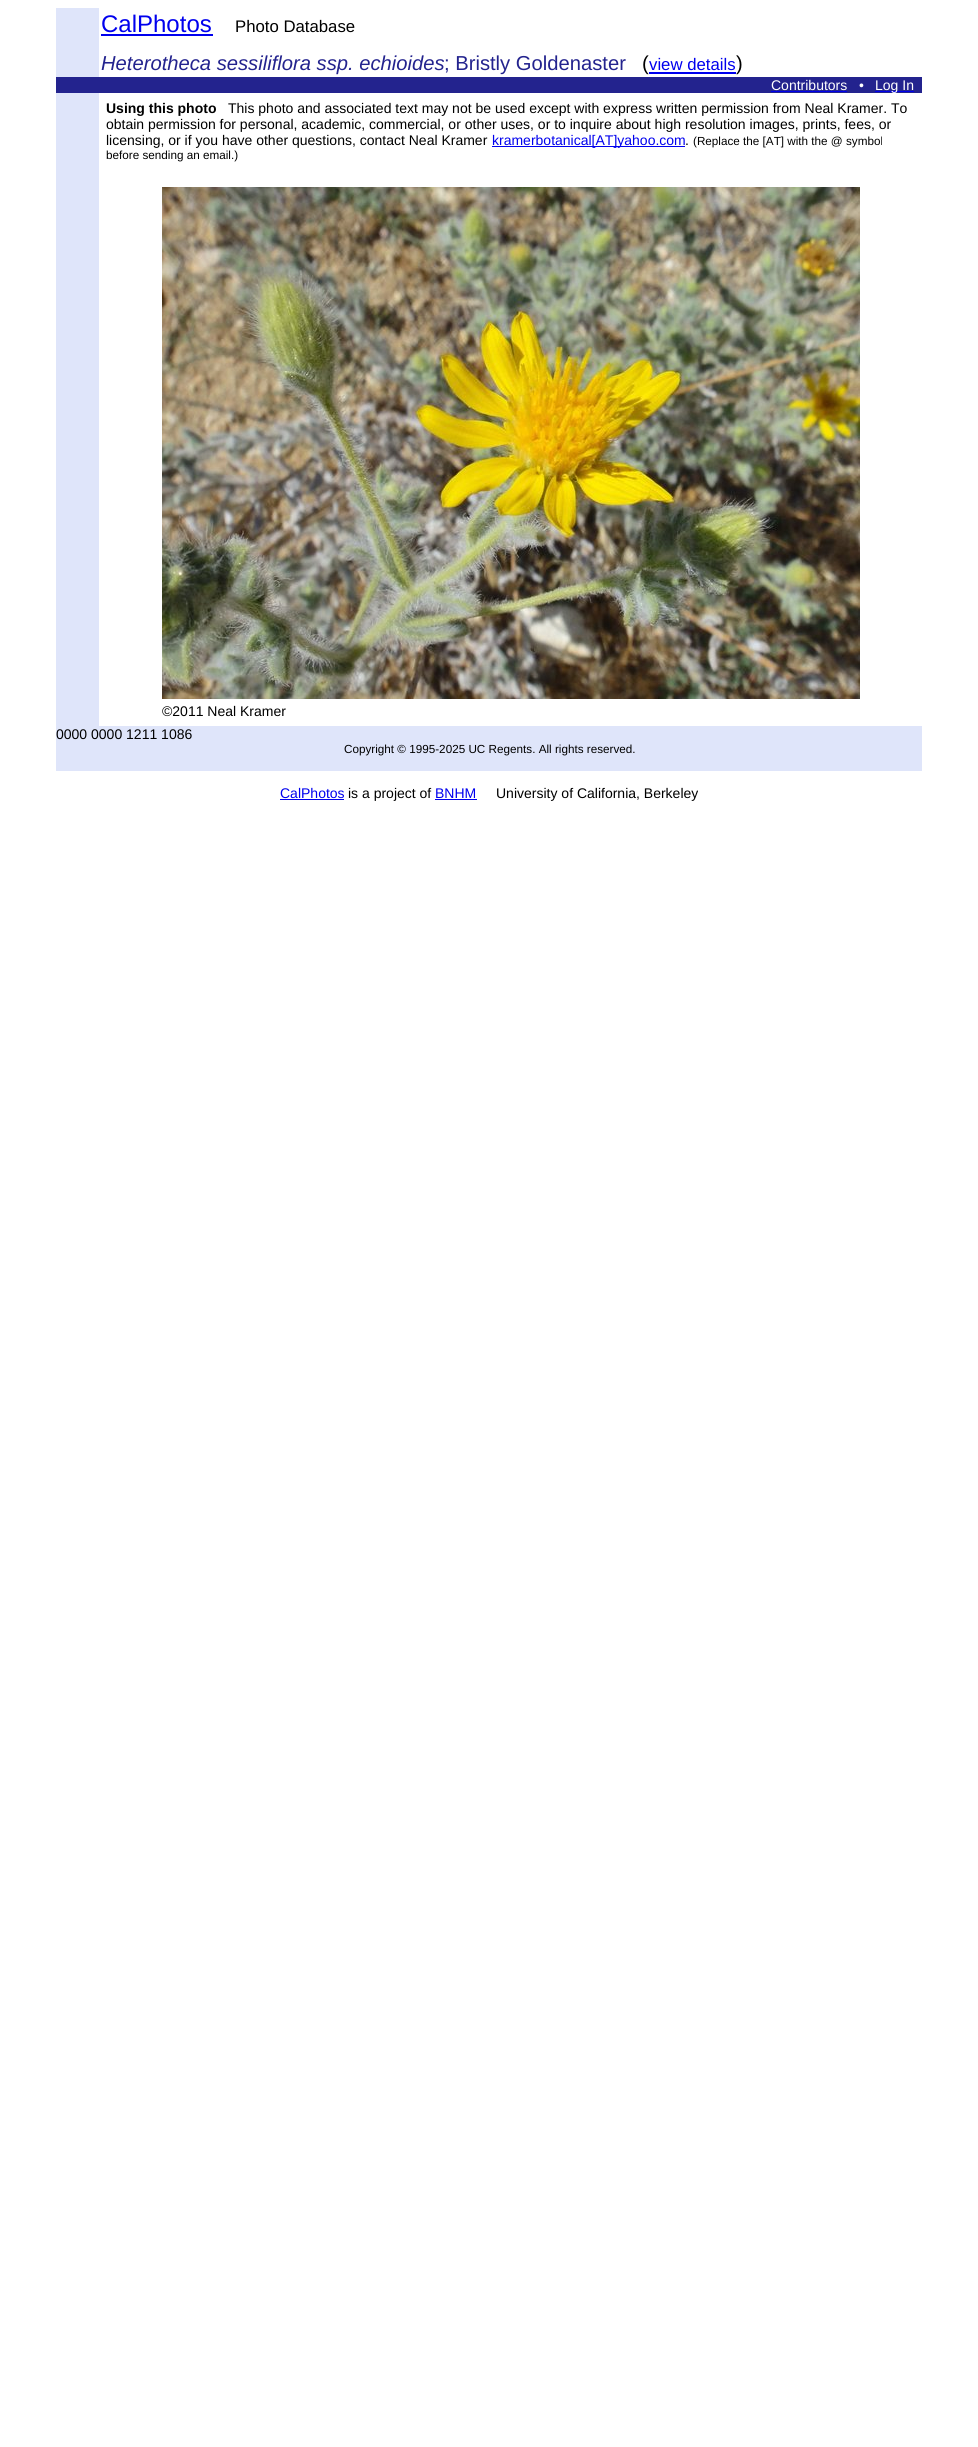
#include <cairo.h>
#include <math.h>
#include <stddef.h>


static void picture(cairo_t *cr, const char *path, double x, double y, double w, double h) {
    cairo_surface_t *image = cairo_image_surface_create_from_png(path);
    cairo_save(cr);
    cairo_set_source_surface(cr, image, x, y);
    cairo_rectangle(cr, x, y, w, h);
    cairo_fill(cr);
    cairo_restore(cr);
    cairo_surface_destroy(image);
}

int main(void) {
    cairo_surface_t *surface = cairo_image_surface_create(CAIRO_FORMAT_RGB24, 978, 2447);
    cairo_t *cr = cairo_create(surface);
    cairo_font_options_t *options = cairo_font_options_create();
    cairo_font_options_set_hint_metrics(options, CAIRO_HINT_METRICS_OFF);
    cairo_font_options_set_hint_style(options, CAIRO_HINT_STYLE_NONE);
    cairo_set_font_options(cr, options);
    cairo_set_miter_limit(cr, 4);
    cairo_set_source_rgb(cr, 1, 1, 1);
    cairo_paint(cr);
    cairo_set_source_rgb(cr, 0.875, 0.898, 0.98);
    cairo_rectangle(cr, 56, 8, 43, 69);
    cairo_fill(cr);
    cairo_select_font_face(cr, "Liberation Sans", CAIRO_FONT_SLANT_NORMAL, CAIRO_FONT_WEIGHT_NORMAL);
    cairo_set_font_size(cr, 24);
    cairo_set_source_rgb(cr, 0, 0, 0.933);
    cairo_move_to(cr, 101, 32);
    cairo_show_text(cr, "CalPhotos");
    cairo_rectangle(cr, 101, 34, 112, 2);
    cairo_fill(cr);
    cairo_set_font_size(cr, 16.75);
    cairo_set_source_rgb(cr, 0, 0, 0);
    cairo_move_to(cr, 235, 32);
    cairo_show_text(cr, "Photo Database");
    cairo_select_font_face(cr, "Liberation Sans", CAIRO_FONT_SLANT_ITALIC, CAIRO_FONT_WEIGHT_NORMAL);
    cairo_set_font_size(cr, 20.2);
    cairo_set_source_rgb(cr, 0.137, 0.137, 0.557);
    cairo_move_to(cr, 101, 70);
    cairo_show_text(cr, "Heterotheca sessiliflora ssp. echioides");
    cairo_select_font_face(cr, "Liberation Sans", CAIRO_FONT_SLANT_NORMAL, CAIRO_FONT_WEIGHT_NORMAL);
    cairo_move_to(cr, 444, 70);
    cairo_show_text(cr, "; Bristly Goldenaster");
    cairo_set_source_rgb(cr, 0, 0, 0);
    cairo_move_to(cr, 642, 70);
    cairo_show_text(cr, "(");
    cairo_set_source_rgb(cr, 0, 0, 0.933);
    cairo_rectangle(cr, 649, 72, 87, 2);
    cairo_fill(cr);
    cairo_set_font_size(cr, 16.75);
    cairo_move_to(cr, 649, 70);
    cairo_show_text(cr, "view details");
    cairo_set_font_size(cr, 20.2);
    cairo_set_source_rgb(cr, 0, 0, 0);
    cairo_move_to(cr, 736, 70);
    cairo_show_text(cr, ")");
    cairo_set_source_rgb(cr, 0.137, 0.137, 0.557);
    cairo_rectangle(cr, 56, 77, 866, 16);
    cairo_fill(cr);
    cairo_set_font_size(cr, 14);
    cairo_set_source_rgb(cr, 1, 1, 1);
    cairo_move_to(cr, 771, 90);
    cairo_show_text(cr, "Contributors");
    cairo_set_source_rgb(cr, 0, 0, 0.933);
    cairo_rectangle(cr, 771, 91, 76, 1);
    cairo_fill(cr);
    cairo_set_source_rgb(cr, 1, 1, 1);
    cairo_move_to(cr, 859, 90);
    cairo_show_text(cr, "•");
    cairo_set_source_rgb(cr, 0, 0, 0.933);
    cairo_rectangle(cr, 875, 91, 39, 1);
    cairo_fill(cr);
    cairo_set_source_rgb(cr, 1, 1, 1);
    cairo_move_to(cr, 875, 90);
    cairo_show_text(cr, "Log In");
    cairo_set_source_rgb(cr, 0.875, 0.898, 0.98);
    cairo_rectangle(cr, 56, 93, 43, 633);
    cairo_fill(cr);
    cairo_select_font_face(cr, "Liberation Sans", CAIRO_FONT_SLANT_NORMAL, CAIRO_FONT_WEIGHT_BOLD);
    cairo_set_source_rgb(cr, 0, 0, 0);
    cairo_move_to(cr, 106, 113);
    cairo_show_text(cr, "Using this photo");
    cairo_select_font_face(cr, "Liberation Sans", CAIRO_FONT_SLANT_NORMAL, CAIRO_FONT_WEIGHT_NORMAL);
    cairo_move_to(cr, 228, 113);
    cairo_show_text(cr, "This photo and associated text may not be used except with express written permission from Neal Kramer. To");
    cairo_move_to(cr, 106, 129);
    cairo_show_text(cr, "obtain permission for personal, academic, commercial, or other uses, or to inquire about high resolution images, prints, fees, or");
    cairo_move_to(cr, 106, 145);
    cairo_show_text(cr, "licensing, or if you have other questions, contact Neal Kramer");
    cairo_set_source_rgb(cr, 0, 0, 0.933);
    cairo_rectangle(cr, 492, 146, 193, 1);
    cairo_fill(cr);
    cairo_move_to(cr, 492, 145);
    cairo_show_text(cr, "kramerbotanical[AT]yahoo.com");
    cairo_set_source_rgb(cr, 0, 0, 0);
    cairo_move_to(cr, 685, 145);
    cairo_show_text(cr, ".");
    cairo_set_font_size(cr, 11.7);
    cairo_move_to(cr, 693, 145);
    cairo_show_text(cr, "(Replace the [AT] with the @ symbol");
    cairo_move_to(cr, 106, 159);
    cairo_show_text(cr, "before sending an email.)");
    picture(cr, "img1.png", 162, 187, 698, 512);
    cairo_set_font_size(cr, 14);
    cairo_move_to(cr, 162, 716);
    cairo_show_text(cr, "©2011 Neal Kramer");
    cairo_set_source_rgb(cr, 0.875, 0.898, 0.98);
    cairo_rectangle(cr, 56, 726, 866, 45);
    cairo_fill(cr);
    cairo_set_source_rgb(cr, 0, 0, 0);
    cairo_move_to(cr, 56, 739);
    cairo_show_text(cr, "0000 0000 1211 1086");
    cairo_set_font_size(cr, 11.7);
    cairo_move_to(cr, 344, 753);
    cairo_show_text(cr, "Copyright © 1995-2025 UC Regents. All rights reserved.");
    cairo_set_font_size(cr, 14);
    cairo_set_source_rgb(cr, 0, 0, 0.933);
    cairo_move_to(cr, 280, 798);
    cairo_show_text(cr, "CalPhotos");
    cairo_rectangle(cr, 280, 799, 64, 1);
    cairo_fill(cr);
    cairo_set_source_rgb(cr, 0, 0, 0);
    cairo_move_to(cr, 348, 798);
    cairo_show_text(cr, "is a project of");
    cairo_set_source_rgb(cr, 0, 0, 0.933);
    cairo_move_to(cr, 435, 798);
    cairo_show_text(cr, "BNHM");
    cairo_rectangle(cr, 435, 799, 42, 1);
    cairo_fill(cr);
    cairo_set_source_rgb(cr, 0, 0, 0);
    cairo_move_to(cr, 496, 798);
    cairo_show_text(cr, "University of California, Berkeley");
    cairo_surface_write_to_png(surface, "page.png");
    cairo_font_options_destroy(options);
    cairo_destroy(cr);
    cairo_surface_destroy(surface);
    return 0;
}
